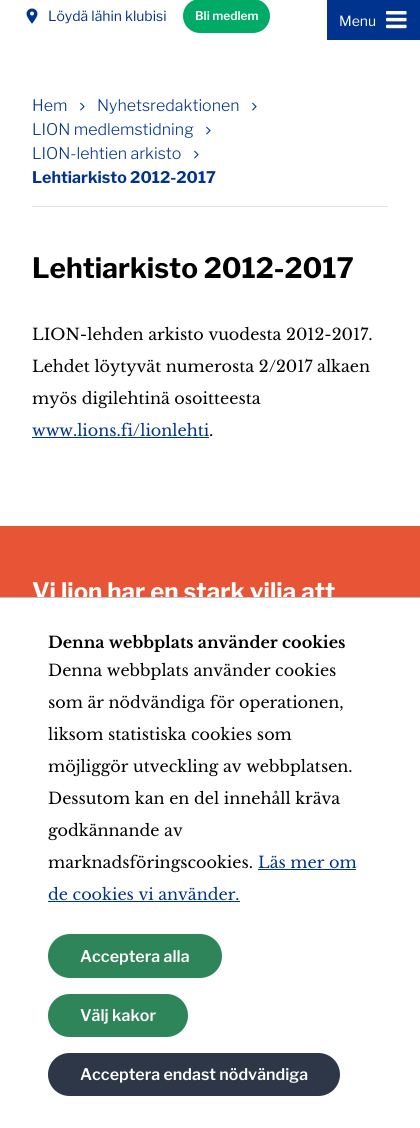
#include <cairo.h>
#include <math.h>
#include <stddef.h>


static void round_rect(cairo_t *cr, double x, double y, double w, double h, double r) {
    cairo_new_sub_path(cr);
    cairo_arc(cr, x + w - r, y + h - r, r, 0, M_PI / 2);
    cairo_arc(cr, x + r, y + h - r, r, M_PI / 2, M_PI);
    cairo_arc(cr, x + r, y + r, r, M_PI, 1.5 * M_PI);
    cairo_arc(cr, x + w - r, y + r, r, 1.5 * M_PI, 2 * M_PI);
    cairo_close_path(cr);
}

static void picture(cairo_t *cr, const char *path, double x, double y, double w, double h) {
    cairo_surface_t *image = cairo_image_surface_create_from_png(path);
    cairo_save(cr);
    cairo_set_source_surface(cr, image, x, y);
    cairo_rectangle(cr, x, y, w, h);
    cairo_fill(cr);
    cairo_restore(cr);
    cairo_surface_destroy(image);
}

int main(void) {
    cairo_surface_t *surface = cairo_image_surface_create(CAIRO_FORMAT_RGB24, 420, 1128);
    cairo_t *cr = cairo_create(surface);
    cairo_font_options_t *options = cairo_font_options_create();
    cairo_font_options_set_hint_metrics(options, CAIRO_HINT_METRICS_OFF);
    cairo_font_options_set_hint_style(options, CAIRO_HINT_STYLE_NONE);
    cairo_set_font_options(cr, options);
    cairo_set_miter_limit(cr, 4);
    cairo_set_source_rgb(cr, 1, 1, 1);
    cairo_paint(cr);
    picture(cr, "img1.png", 26, 8, 12, 16);
    cairo_select_font_face(cr, "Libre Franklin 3 Thin", CAIRO_FONT_SLANT_NORMAL, CAIRO_FONT_WEIGHT_NORMAL);
    cairo_set_font_size(cr, 14);
    cairo_set_source_rgb(cr, 0, 0.2, 0.553);
    cairo_move_to(cr, 48, 21);
    cairo_show_text(cr, "Löydä lähin klubisi");
    cairo_set_source_rgb(cr, 0, 0.671, 0.408);
    round_rect(cr, 183, -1, 87, 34, 17);
    cairo_fill(cr);
    cairo_select_font_face(cr, "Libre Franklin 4 Thin", CAIRO_FONT_SLANT_NORMAL, CAIRO_FONT_WEIGHT_NORMAL);
    cairo_set_font_size(cr, 12);
    cairo_set_source_rgb(cr, 1, 1, 1);
    cairo_move_to(cr, 195, 20);
    cairo_show_text(cr, "Bli medlem");
    cairo_set_source_rgb(cr, 0.886, 0.886, 0.886);
    cairo_rectangle(cr, 32, 206, 356, 1);
    cairo_fill(cr);
    cairo_select_font_face(cr, "Libre Franklin Thin", CAIRO_FONT_SLANT_NORMAL, CAIRO_FONT_WEIGHT_NORMAL);
    cairo_set_font_size(cr, 16);
    cairo_set_source_rgb(cr, 0, 0.2, 0.553);
    cairo_move_to(cr, 32, 111);
    cairo_show_text(cr, "Hem");
    picture(cr, "img2.png", 80, 102, 5, 9);
    cairo_move_to(cr, 97, 111);
    cairo_show_text(cr, "Nyhetsredaktionen");
    picture(cr, "img2.png", 252, 102, 5, 9);
    cairo_move_to(cr, 32, 135);
    cairo_show_text(cr, "LION medlemstidning");
    picture(cr, "img2.png", 206, 126, 5, 9);
    cairo_move_to(cr, 32, 159);
    cairo_show_text(cr, "LION-lehtien arkisto");
    picture(cr, "img2.png", 194, 150, 5, 9);
    cairo_select_font_face(cr, "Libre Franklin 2 Thin", CAIRO_FONT_SLANT_NORMAL, CAIRO_FONT_WEIGHT_NORMAL);
    cairo_move_to(cr, 32, 183);
    cairo_show_text(cr, "Lehtiarkisto 2012-2017");
    cairo_set_font_size(cr, 28);
    cairo_set_source_rgb(cr, 0, 0, 0);
    cairo_move_to(cr, 32, 278);
    cairo_show_text(cr, "Lehtiarkisto 2012-2017");
    cairo_select_font_face(cr, "Libre Baskerville", CAIRO_FONT_SLANT_NORMAL, CAIRO_FONT_WEIGHT_NORMAL);
    cairo_set_font_size(cr, 16);
    cairo_move_to(cr, 32, 340);
    cairo_show_text(cr, "LION-lehden arkisto vuodesta 2012-2017.");
    cairo_move_to(cr, 32, 372);
    cairo_show_text(cr, "Lehdet löytyvät numerosta 2/2017 alkaen");
    cairo_move_to(cr, 32, 404);
    cairo_show_text(cr, "myös digilehtinä osoitteesta");
    cairo_set_source_rgb(cr, 0, 0.2, 0.553);
    cairo_move_to(cr, 32, 436);
    cairo_show_text(cr, "www.lions.fi/lionlehti");
    cairo_rectangle(cr, 32, 437, 177, 1);
    cairo_fill(cr);
    cairo_set_source_rgb(cr, 0, 0, 0);
    cairo_move_to(cr, 209, 436);
    cairo_show_text(cr, ".");
    cairo_set_source_rgb(cr, 0.906, 0.333, 0.212);
    cairo_rectangle(cr, 0, 526, 420, 71);
    cairo_fill(cr);
    cairo_select_font_face(cr, "Libre Franklin 2 Thin", CAIRO_FONT_SLANT_NORMAL, CAIRO_FONT_WEIGHT_NORMAL);
    cairo_set_font_size(cr, 24);
    cairo_set_source_rgb(cr, 1, 1, 1);
    cairo_move_to(cr, 32, 600);
    cairo_show_text(cr, "Vi lion har en stark vilja att");
    cairo_set_source_rgb(cr, 0, 0.2, 0.553);
    cairo_rectangle(cr, 327, 0, 93, 40);
    cairo_fill(cr);
    cairo_select_font_face(cr, "Libre Franklin 3 Thin", CAIRO_FONT_SLANT_NORMAL, CAIRO_FONT_WEIGHT_NORMAL);
    cairo_set_font_size(cr, 14);
    cairo_set_source_rgb(cr, 1, 1, 1);
    cairo_move_to(cr, 339, 26);
    cairo_show_text(cr, "Menu");
    picture(cr, "img3.png", 386, 11, 21, 18);
    cairo_set_source_rgb(cr, 0.749, 0.749, 0.749);
    cairo_rectangle(cr, 0, 597, 420, 1);
    cairo_fill(cr);
    cairo_select_font_face(cr, "Libre Baskerville", CAIRO_FONT_SLANT_NORMAL, CAIRO_FONT_WEIGHT_BOLD);
    cairo_set_font_size(cr, 16);
    cairo_set_source_rgb(cr, 0, 0, 0);
    cairo_move_to(cr, 48, 648);
    cairo_show_text(cr, "Denna webbplats använder cookies");
    cairo_select_font_face(cr, "Libre Baskerville", CAIRO_FONT_SLANT_NORMAL, CAIRO_FONT_WEIGHT_NORMAL);
    cairo_move_to(cr, 48, 676);
    cairo_show_text(cr, "Denna webbplats använder cookies");
    cairo_move_to(cr, 48, 708);
    cairo_show_text(cr, "som är nödvändiga för operationen,");
    cairo_move_to(cr, 48, 740);
    cairo_show_text(cr, "liksom statistiska cookies som");
    cairo_move_to(cr, 48, 772);
    cairo_show_text(cr, "möjliggör utveckling av webbplatsen.");
    cairo_move_to(cr, 48, 804);
    cairo_show_text(cr, "Dessutom kan en del innehåll kräva");
    cairo_move_to(cr, 48, 836);
    cairo_show_text(cr, "godkännande av");
    cairo_move_to(cr, 48, 868);
    cairo_show_text(cr, "marknadsföringscookies.");
    cairo_set_source_rgb(cr, 0, 0.2, 0.553);
    cairo_move_to(cr, 258, 868);
    cairo_show_text(cr, "Läs mer om");
    cairo_rectangle(cr, 258, 869, 98, 1);
    cairo_fill(cr);
    cairo_move_to(cr, 48, 900);
    cairo_show_text(cr, "de cookies vi använder.");
    cairo_rectangle(cr, 48, 901, 192, 1);
    cairo_fill(cr);
    cairo_set_source_rgb(cr, 0.184, 0.522, 0.353);
    round_rect(cr, 48, 934, 174, 44, 22);
    cairo_fill(cr);
    cairo_select_font_face(cr, "Libre Franklin 4 Thin", CAIRO_FONT_SLANT_NORMAL, CAIRO_FONT_WEIGHT_NORMAL);
    cairo_set_source_rgb(cr, 1, 1, 1);
    cairo_move_to(cr, 80, 962);
    cairo_show_text(cr, "Acceptera alla");
    cairo_set_source_rgb(cr, 0.184, 0.522, 0.353);
    round_rect(cr, 48, 994, 140, 43, 21.5);
    cairo_fill(cr);
    cairo_set_source_rgb(cr, 1, 1, 1);
    cairo_move_to(cr, 80, 1021);
    cairo_show_text(cr, "Välj kakor");
    cairo_set_source_rgb(cr, 0.176, 0.216, 0.282);
    round_rect(cr, 48, 1053, 292, 43, 21.5);
    cairo_fill(cr);
    cairo_set_source_rgb(cr, 1, 1, 1);
    cairo_move_to(cr, 80, 1080);
    cairo_show_text(cr, "Acceptera endast nödvändiga");
    cairo_surface_write_to_png(surface, "page.png");
    cairo_font_options_destroy(options);
    cairo_destroy(cr);
    cairo_surface_destroy(surface);
    return 0;
}
